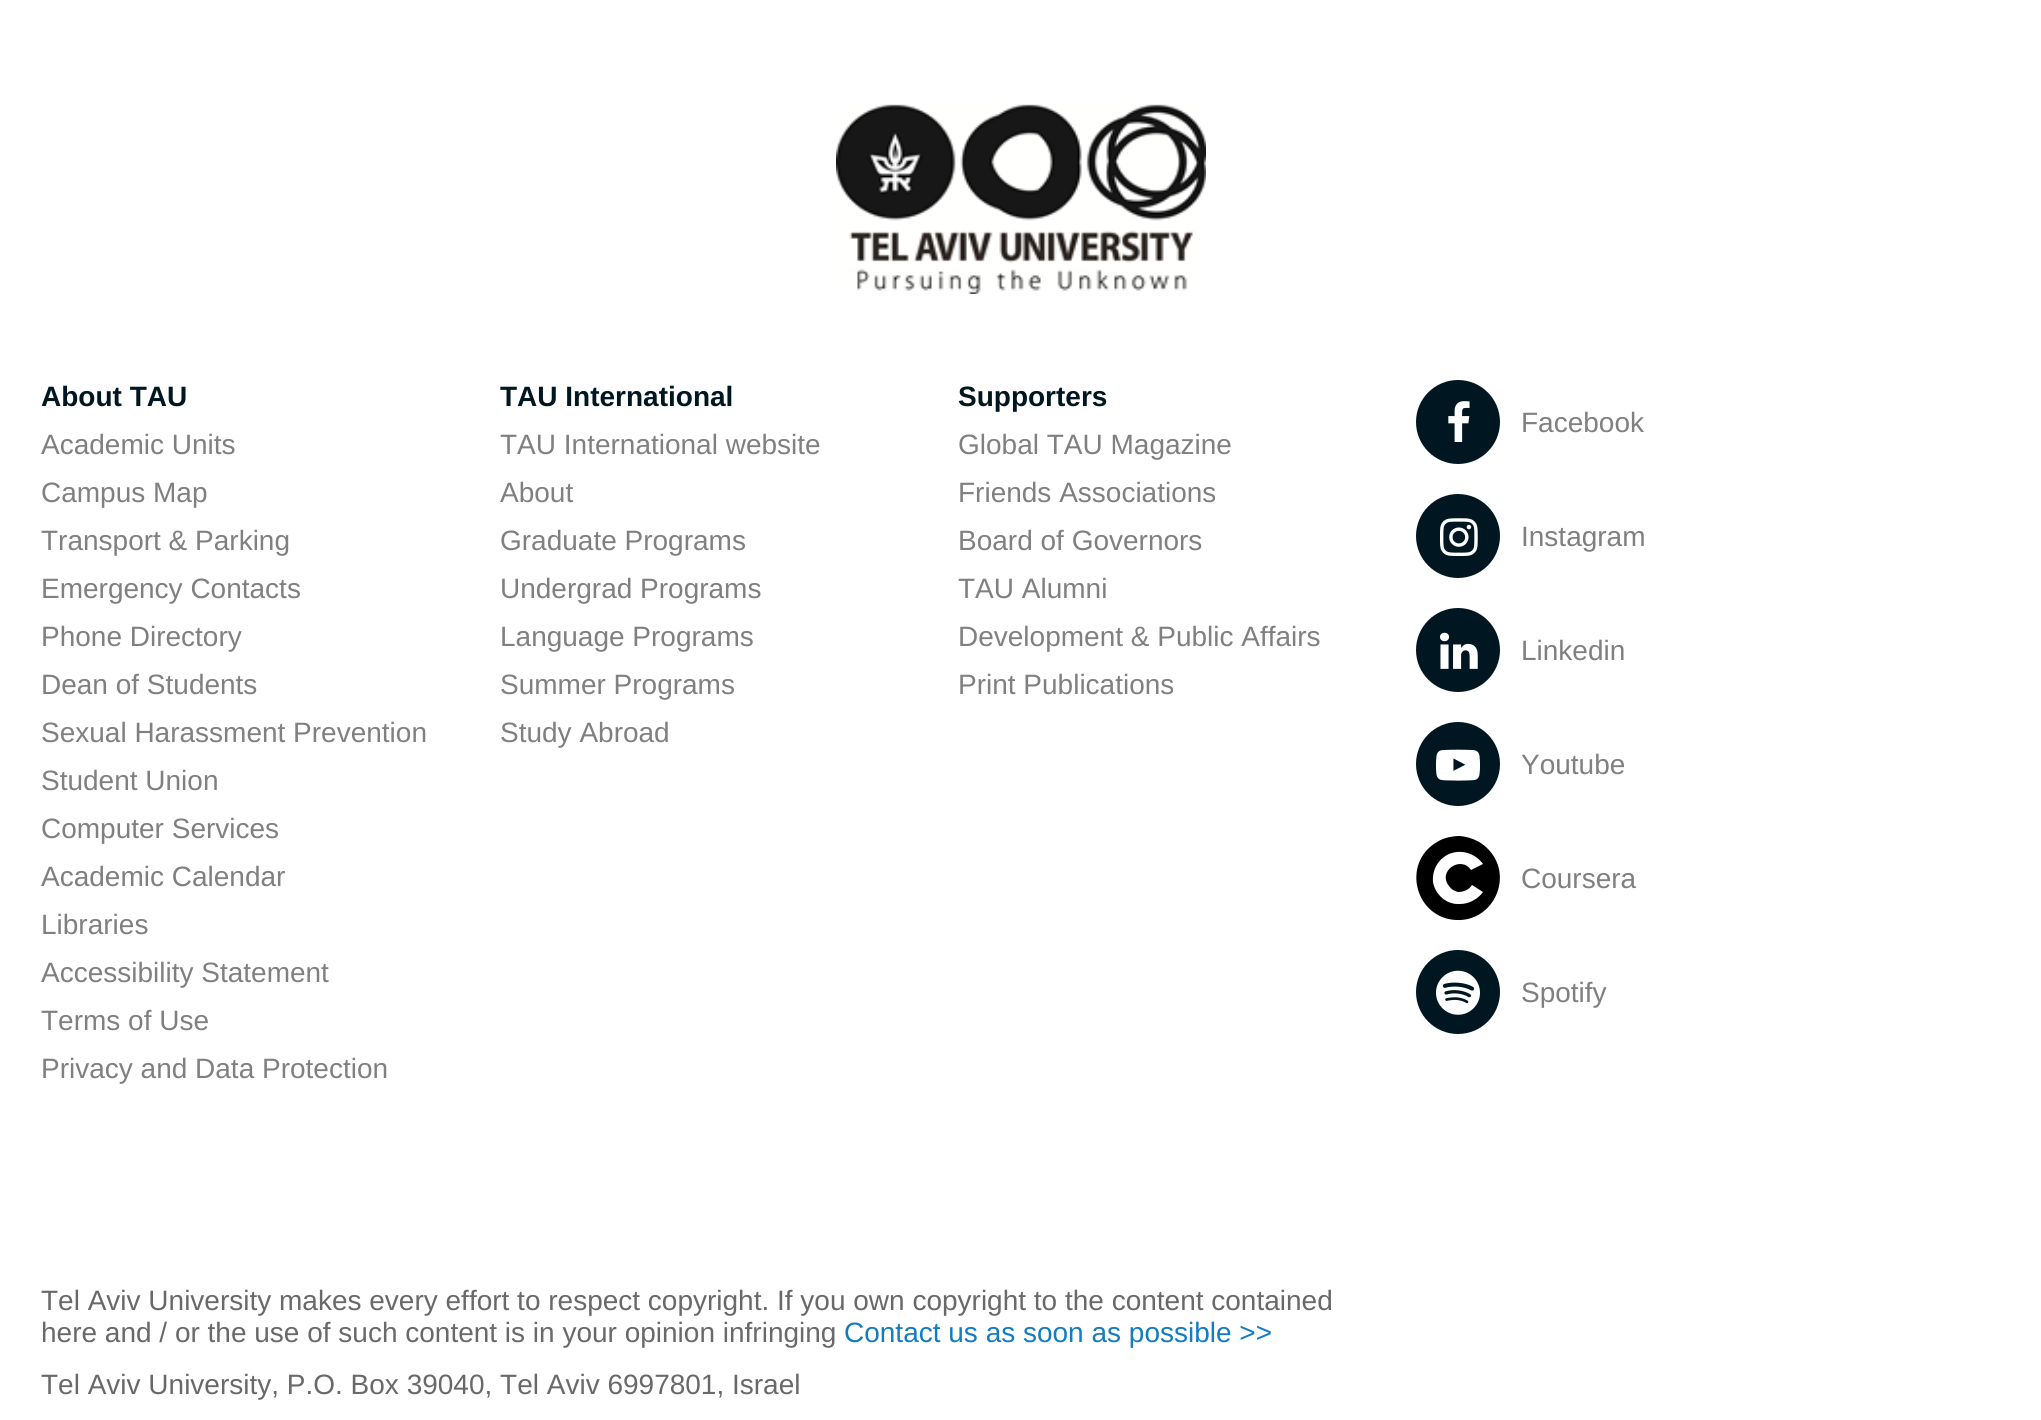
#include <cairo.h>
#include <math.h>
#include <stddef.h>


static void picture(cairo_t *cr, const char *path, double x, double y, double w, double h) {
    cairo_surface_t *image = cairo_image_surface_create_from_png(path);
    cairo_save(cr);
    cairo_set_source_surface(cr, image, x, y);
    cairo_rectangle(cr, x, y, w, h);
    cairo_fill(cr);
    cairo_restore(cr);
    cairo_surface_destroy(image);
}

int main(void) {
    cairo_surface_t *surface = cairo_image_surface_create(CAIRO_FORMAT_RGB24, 2041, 1420);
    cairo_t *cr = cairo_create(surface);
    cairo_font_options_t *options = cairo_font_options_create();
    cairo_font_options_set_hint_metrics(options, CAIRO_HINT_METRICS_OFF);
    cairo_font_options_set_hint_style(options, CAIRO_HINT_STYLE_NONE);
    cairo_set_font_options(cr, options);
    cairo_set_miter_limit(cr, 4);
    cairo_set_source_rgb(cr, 1, 1, 1);
    cairo_paint(cr);
    picture(cr, "img1.png", 836, 104, 370, 190);
    cairo_select_font_face(cr, "Liberation Sans", CAIRO_FONT_SLANT_NORMAL, CAIRO_FONT_WEIGHT_BOLD);
    cairo_set_font_size(cr, 28);
    cairo_set_source_rgb(cr, 0, 0.09, 0.129);
    cairo_move_to(cr, 41, 406);
    cairo_show_text(cr, "About TAU");
    cairo_select_font_face(cr, "Liberation Sans", CAIRO_FONT_SLANT_NORMAL, CAIRO_FONT_WEIGHT_NORMAL);
    cairo_set_source_rgb(cr, 0.502, 0.502, 0.502);
    cairo_move_to(cr, 41, 454);
    cairo_show_text(cr, "Academic Units");
    cairo_move_to(cr, 41, 502);
    cairo_show_text(cr, "Campus Map");
    cairo_move_to(cr, 41, 550);
    cairo_show_text(cr, "Transport & Parking");
    cairo_move_to(cr, 41, 598);
    cairo_show_text(cr, "Emergency Contacts");
    cairo_move_to(cr, 41, 646);
    cairo_show_text(cr, "Phone Directory");
    cairo_move_to(cr, 41, 694);
    cairo_show_text(cr, "Dean of Students");
    cairo_move_to(cr, 41, 742);
    cairo_show_text(cr, "Sexual Harassment Prevention");
    cairo_move_to(cr, 41, 790);
    cairo_show_text(cr, "Student Union");
    cairo_move_to(cr, 41, 838);
    cairo_show_text(cr, "Computer Services");
    cairo_move_to(cr, 41, 886);
    cairo_show_text(cr, "Academic Calendar");
    cairo_move_to(cr, 41, 934);
    cairo_show_text(cr, "Libraries");
    cairo_move_to(cr, 41, 982);
    cairo_show_text(cr, "Accessibility Statement");
    cairo_move_to(cr, 41, 1030);
    cairo_show_text(cr, "Terms of Use");
    cairo_move_to(cr, 41, 1078);
    cairo_show_text(cr, "Privacy and Data Protection");
    cairo_select_font_face(cr, "Liberation Sans", CAIRO_FONT_SLANT_NORMAL, CAIRO_FONT_WEIGHT_BOLD);
    cairo_set_source_rgb(cr, 0, 0.09, 0.129);
    cairo_move_to(cr, 500, 406);
    cairo_show_text(cr, "TAU International");
    cairo_select_font_face(cr, "Liberation Sans", CAIRO_FONT_SLANT_NORMAL, CAIRO_FONT_WEIGHT_NORMAL);
    cairo_set_source_rgb(cr, 0.502, 0.502, 0.502);
    cairo_move_to(cr, 500, 454);
    cairo_show_text(cr, "TAU International website");
    cairo_move_to(cr, 500, 502);
    cairo_show_text(cr, "About");
    cairo_move_to(cr, 500, 550);
    cairo_show_text(cr, "Graduate Programs");
    cairo_move_to(cr, 500, 598);
    cairo_show_text(cr, "Undergrad Programs");
    cairo_move_to(cr, 500, 646);
    cairo_show_text(cr, "Language Programs");
    cairo_move_to(cr, 500, 694);
    cairo_show_text(cr, "Summer Programs");
    cairo_move_to(cr, 500, 742);
    cairo_show_text(cr, "Study Abroad");
    cairo_select_font_face(cr, "Liberation Sans", CAIRO_FONT_SLANT_NORMAL, CAIRO_FONT_WEIGHT_BOLD);
    cairo_set_source_rgb(cr, 0, 0.09, 0.129);
    cairo_move_to(cr, 958, 406);
    cairo_show_text(cr, "Supporters");
    cairo_select_font_face(cr, "Liberation Sans", CAIRO_FONT_SLANT_NORMAL, CAIRO_FONT_WEIGHT_NORMAL);
    cairo_set_source_rgb(cr, 0.502, 0.502, 0.502);
    cairo_move_to(cr, 958, 454);
    cairo_show_text(cr, "Global TAU Magazine");
    cairo_move_to(cr, 958, 502);
    cairo_show_text(cr, "Friends Associations");
    cairo_move_to(cr, 958, 550);
    cairo_show_text(cr, "Board of Governors");
    cairo_move_to(cr, 958, 598);
    cairo_show_text(cr, "TAU Alumni");
    cairo_move_to(cr, 958, 646);
    cairo_show_text(cr, "Development & Public Affairs");
    cairo_move_to(cr, 958, 694);
    cairo_show_text(cr, "Print Publications");
    cairo_set_source_rgb(cr, 0, 0.09, 0.129);
    cairo_new_path(cr);
    cairo_arc(cr, 1458, 422, 42, 0, 2 * M_PI);
    cairo_fill(cr);
    picture(cr, "img2.png", 1448, 401, 22, 41);
    cairo_set_source_rgb(cr, 0.502, 0.502, 0.502);
    cairo_move_to(cr, 1521, 432);
    cairo_show_text(cr, "Facebook");
    cairo_set_source_rgb(cr, 0, 0.09, 0.129);
    cairo_new_path(cr);
    cairo_arc(cr, 1458, 536, 42, 0, 2 * M_PI);
    cairo_fill(cr);
    picture(cr, "img3.png", 1440, 518, 38, 38);
    cairo_set_source_rgb(cr, 0.502, 0.502, 0.502);
    cairo_move_to(cr, 1521, 546);
    cairo_show_text(cr, "Instagram");
    cairo_set_source_rgb(cr, 0, 0.09, 0.129);
    cairo_new_path(cr);
    cairo_arc(cr, 1458, 650, 42, 0, 2 * M_PI);
    cairo_fill(cr);
    picture(cr, "img4.png", 1440, 632, 38, 37);
    cairo_set_source_rgb(cr, 0.502, 0.502, 0.502);
    cairo_move_to(cr, 1521, 660);
    cairo_show_text(cr, "Linkedin");
    cairo_set_source_rgb(cr, 0, 0.09, 0.129);
    cairo_new_path(cr);
    cairo_arc(cr, 1458, 764, 42, 0, 2 * M_PI);
    cairo_fill(cr);
    picture(cr, "img5.png", 1436, 749, 44, 32);
    cairo_set_source_rgb(cr, 0.502, 0.502, 0.502);
    cairo_move_to(cr, 1521, 774);
    cairo_show_text(cr, "Youtube");
    cairo_set_source_rgb(cr, 0, 0, 0);
    cairo_new_path(cr);
    cairo_move_to(cr, 1456, 920);
    cairo_curve_to(cr, 1415, 918, 1401, 863, 1437, 842);
    cairo_curve_to(cr, 1443, 838, 1452, 836, 1460, 836);
    cairo_curve_to(cr, 1470, 837, 1480, 841, 1487, 848);
    cairo_curve_to(cr, 1515, 875, 1494, 922, 1456, 920);
    cairo_close_path(cr);
    cairo_move_to(cr, 1483, 892);
    cairo_line_to(cr, 1472, 885);
    cairo_curve_to(cr, 1469, 890, 1463, 892, 1458, 892);
    cairo_curve_to(cr, 1454, 891, 1451, 889, 1449, 886);
    cairo_curve_to(cr, 1437, 871, 1461, 855, 1471, 870);
    cairo_line_to(cr, 1483, 864);
    cairo_curve_to(cr, 1475, 853, 1461, 849, 1449, 854);
    cairo_curve_to(cr, 1438, 859, 1432, 870, 1433, 882);
    cairo_curve_to(cr, 1435, 894, 1446, 905, 1460, 904);
    cairo_curve_to(cr, 1469, 904, 1478, 899, 1483, 892);
    cairo_close_path(cr);
    cairo_fill(cr);
    cairo_set_source_rgb(cr, 0.502, 0.502, 0.502);
    cairo_move_to(cr, 1521, 888);
    cairo_show_text(cr, "Coursera");
    cairo_set_source_rgb(cr, 0, 0.09, 0.129);
    cairo_new_path(cr);
    cairo_arc(cr, 1458, 992, 42, 0, 2 * M_PI);
    cairo_fill(cr);
    picture(cr, "img6.png", 1436, 970, 44, 45);
    cairo_set_source_rgb(cr, 0.502, 0.502, 0.502);
    cairo_move_to(cr, 1521, 1002);
    cairo_show_text(cr, "Spotify");
    cairo_set_source_rgb(cr, 0.412, 0.412, 0.412);
    cairo_move_to(cr, 41, 1310);
    cairo_show_text(cr, "Tel Aviv University makes every effort to respect copyright. If you own copyright to the content contained");
    cairo_move_to(cr, 41, 1342);
    cairo_show_text(cr, "here and / or the use of such content is in your opinion infringing");
    cairo_set_source_rgb(cr, 0.078, 0.486, 0.761);
    cairo_move_to(cr, 844, 1342);
    cairo_show_text(cr, "Contact us as soon as possible >>");
    cairo_set_source_rgb(cr, 0.412, 0.412, 0.412);
    cairo_move_to(cr, 41, 1394);
    cairo_show_text(cr, "Tel Aviv University, P.O. Box 39040, Tel Aviv 6997801, Israel");
    cairo_surface_write_to_png(surface, "page.png");
    cairo_font_options_destroy(options);
    cairo_destroy(cr);
    cairo_surface_destroy(surface);
    return 0;
}
